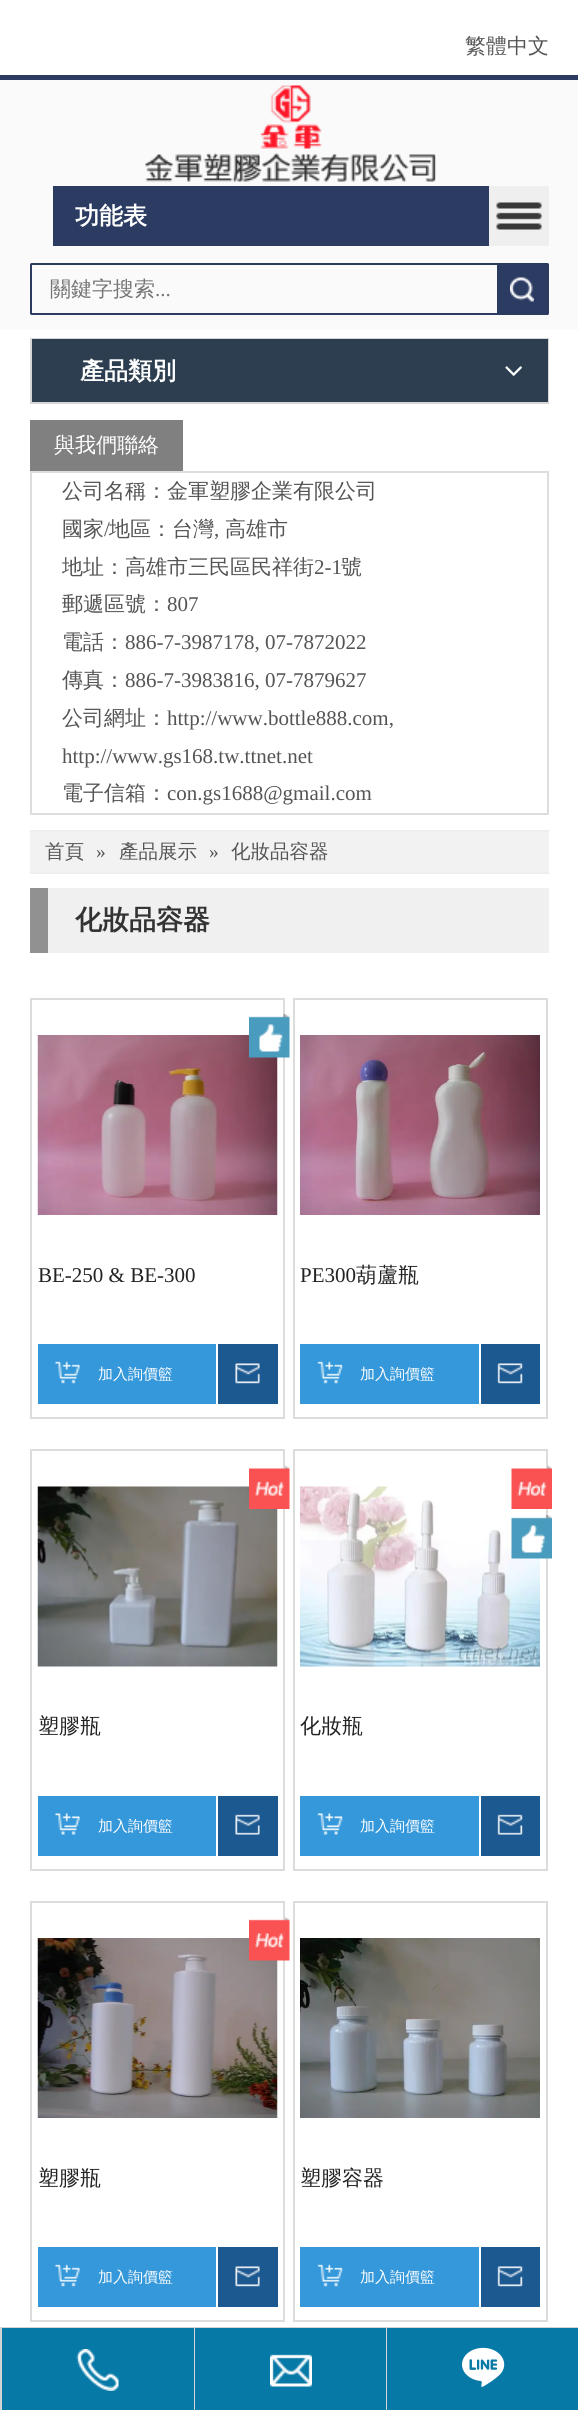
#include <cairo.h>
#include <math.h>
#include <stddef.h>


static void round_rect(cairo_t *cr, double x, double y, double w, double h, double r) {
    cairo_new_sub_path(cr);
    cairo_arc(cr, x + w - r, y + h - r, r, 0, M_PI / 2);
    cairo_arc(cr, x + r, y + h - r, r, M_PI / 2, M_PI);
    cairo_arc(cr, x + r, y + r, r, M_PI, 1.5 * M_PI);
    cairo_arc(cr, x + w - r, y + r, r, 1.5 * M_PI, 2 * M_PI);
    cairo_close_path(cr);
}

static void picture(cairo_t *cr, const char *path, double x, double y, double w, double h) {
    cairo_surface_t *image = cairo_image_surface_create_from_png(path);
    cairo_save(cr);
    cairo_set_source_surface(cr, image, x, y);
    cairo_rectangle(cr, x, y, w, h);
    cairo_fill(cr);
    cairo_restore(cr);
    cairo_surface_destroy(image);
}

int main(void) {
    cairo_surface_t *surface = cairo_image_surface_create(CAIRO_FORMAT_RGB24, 578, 2410);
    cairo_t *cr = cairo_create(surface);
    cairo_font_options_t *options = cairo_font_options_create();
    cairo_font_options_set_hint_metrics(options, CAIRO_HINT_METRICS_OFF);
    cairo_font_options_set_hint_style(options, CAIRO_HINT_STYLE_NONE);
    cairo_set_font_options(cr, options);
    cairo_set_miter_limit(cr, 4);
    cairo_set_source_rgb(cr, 1, 1, 1);
    cairo_paint(cr);
    cairo_select_font_face(cr, "WenQuanYi Zen Hei Medium", CAIRO_FONT_SLANT_NORMAL, CAIRO_FONT_WEIGHT_NORMAL);
    cairo_set_font_size(cr, 21);
    cairo_set_source_rgb(cr, 0.329, 0.329, 0.329);
    cairo_move_to(cr, 465, 53);
    cairo_show_text(cr, "繁體中文");
    cairo_set_source_rgb(cr, 0.98, 0.98, 0.98);
    cairo_rectangle(cr, 0, 80, 578, 250);
    cairo_fill(cr);
    cairo_set_source_rgb(cr, 0.169, 0.231, 0.384);
    cairo_rectangle(cr, 0, 75, 578, 5);
    cairo_fill(cr);
    picture(cr, "img1.png", 145, 85, 291, 97);
    cairo_rectangle(cr, 53, 186, 436, 60);
    cairo_fill(cr);
    cairo_select_font_face(cr, "WenQuanYi Zen Hei", CAIRO_FONT_SLANT_NORMAL, CAIRO_FONT_WEIGHT_BOLD);
    cairo_set_font_size(cr, 24);
    cairo_set_source_rgb(cr, 1, 1, 1);
    cairo_move_to(cr, 75, 224);
    cairo_show_text(cr, "功能表");
    cairo_set_source_rgb(cr, 0.937, 0.937, 0.937);
    cairo_rectangle(cr, 489, 186, 60, 60);
    cairo_fill(cr);
    picture(cr, "img2.png", 496, 202, 46, 28);
    round_rect(cr, 31, 264, 517, 50, 0.5);
    cairo_set_source_rgb(cr, 0.169, 0.231, 0.384);
    cairo_stroke(cr);
    cairo_select_font_face(cr, "WenQuanYi Zen Hei Medium", CAIRO_FONT_SLANT_NORMAL, CAIRO_FONT_WEIGHT_NORMAL);
    cairo_set_font_size(cr, 21);
    cairo_set_source_rgb(cr, 0.459, 0.459, 0.459);
    cairo_move_to(cr, 50, 296);
    cairo_show_text(cr, "關鍵字搜索");
    cairo_select_font_face(cr, "Liberation Serif", CAIRO_FONT_SLANT_NORMAL, CAIRO_FONT_WEIGHT_NORMAL);
    cairo_move_to(cr, 155, 296);
    cairo_show_text(cr, "...");
    cairo_set_source_rgb(cr, 0.169, 0.231, 0.384);
    cairo_rectangle(cr, 497, 265, 50, 48);
    cairo_fill(cr);
    picture(cr, "img3.png", 510, 277, 24, 25);
    cairo_rectangle(cr, 31, 339, 517, 64);
    cairo_set_source_rgb(cr, 0.839, 0.839, 0.839);
    cairo_stroke(cr);
    cairo_set_source_rgb(cr, 0.173, 0.243, 0.314);
    cairo_rectangle(cr, 32, 339, 516, 63);
    cairo_fill(cr);
    cairo_select_font_face(cr, "WenQuanYi Zen Hei", CAIRO_FONT_SLANT_NORMAL, CAIRO_FONT_WEIGHT_BOLD);
    cairo_set_font_size(cr, 24);
    cairo_set_source_rgb(cr, 1, 1, 1);
    cairo_move_to(cr, 80, 379);
    cairo_show_text(cr, "產品類別");
    picture(cr, "img4.png", 505, 366, 17, 10);
    cairo_set_source_rgb(cr, 0.502, 0.502, 0.502);
    cairo_rectangle(cr, 30, 420, 153, 51);
    cairo_fill(cr);
    cairo_select_font_face(cr, "WenQuanYi Zen Hei Medium", CAIRO_FONT_SLANT_NORMAL, CAIRO_FONT_WEIGHT_NORMAL);
    cairo_set_font_size(cr, 21);
    cairo_set_source_rgb(cr, 1, 1, 1);
    cairo_move_to(cr, 54, 452);
    cairo_show_text(cr, "與我們聯絡");
    cairo_rectangle(cr, 31, 472, 517, 342);
    cairo_set_source_rgb(cr, 0.867, 0.867, 0.867);
    cairo_stroke(cr);
    cairo_set_source_rgb(cr, 0.329, 0.329, 0.329);
    cairo_move_to(cr, 62, 498);
    cairo_show_text(cr, "公司名稱：金軍塑膠企業有限公司");
    cairo_move_to(cr, 62, 536);
    cairo_show_text(cr, "國家");
    cairo_select_font_face(cr, "Liberation Serif", CAIRO_FONT_SLANT_NORMAL, CAIRO_FONT_WEIGHT_NORMAL);
    cairo_move_to(cr, 104, 536);
    cairo_show_text(cr, "/");
    cairo_select_font_face(cr, "WenQuanYi Zen Hei Medium", CAIRO_FONT_SLANT_NORMAL, CAIRO_FONT_WEIGHT_NORMAL);
    cairo_move_to(cr, 109, 536);
    cairo_show_text(cr, "地區：台灣");
    cairo_select_font_face(cr, "Liberation Serif", CAIRO_FONT_SLANT_NORMAL, CAIRO_FONT_WEIGHT_NORMAL);
    cairo_move_to(cr, 214, 536);
    cairo_show_text(cr, ",");
    cairo_select_font_face(cr, "WenQuanYi Zen Hei Medium", CAIRO_FONT_SLANT_NORMAL, CAIRO_FONT_WEIGHT_NORMAL);
    cairo_move_to(cr, 225, 536);
    cairo_show_text(cr, "高雄市");
    cairo_save(cr);
    cairo_rectangle(cr, 62, 473, 456, 340);
    cairo_clip(cr);
    cairo_move_to(cr, 62, 574);
    cairo_show_text(cr, "地址：");
    cairo_restore(cr);
    cairo_move_to(cr, 125, 574);
    cairo_show_text(cr, "高雄市三民區民祥街");
    cairo_select_font_face(cr, "Liberation Serif", CAIRO_FONT_SLANT_NORMAL, CAIRO_FONT_WEIGHT_NORMAL);
    cairo_move_to(cr, 314, 574);
    cairo_show_text(cr, "2-1");
    cairo_select_font_face(cr, "WenQuanYi Zen Hei Medium", CAIRO_FONT_SLANT_NORMAL, CAIRO_FONT_WEIGHT_NORMAL);
    cairo_move_to(cr, 341, 574);
    cairo_show_text(cr, "號");
    cairo_save(cr);
    cairo_rectangle(cr, 62, 473, 456, 340);
    cairo_clip(cr);
    cairo_move_to(cr, 62, 611);
    cairo_show_text(cr, "郵遞區號：");
    cairo_restore(cr);
    cairo_select_font_face(cr, "Liberation Serif", CAIRO_FONT_SLANT_NORMAL, CAIRO_FONT_WEIGHT_NORMAL);
    cairo_move_to(cr, 167, 611);
    cairo_show_text(cr, "807");
    cairo_select_font_face(cr, "WenQuanYi Zen Hei Medium", CAIRO_FONT_SLANT_NORMAL, CAIRO_FONT_WEIGHT_NORMAL);
    cairo_move_to(cr, 62, 649);
    cairo_show_text(cr, "電話：");
    cairo_select_font_face(cr, "Liberation Serif", CAIRO_FONT_SLANT_NORMAL, CAIRO_FONT_WEIGHT_NORMAL);
    cairo_move_to(cr, 125, 649);
    cairo_show_text(cr, "886-7-3987178, 07-7872022");
    cairo_select_font_face(cr, "WenQuanYi Zen Hei Medium", CAIRO_FONT_SLANT_NORMAL, CAIRO_FONT_WEIGHT_NORMAL);
    cairo_move_to(cr, 62, 687);
    cairo_show_text(cr, "傳真：");
    cairo_select_font_face(cr, "Liberation Serif", CAIRO_FONT_SLANT_NORMAL, CAIRO_FONT_WEIGHT_NORMAL);
    cairo_move_to(cr, 125, 687);
    cairo_show_text(cr, "886-7-3983816, 07-7879627");
    cairo_select_font_face(cr, "WenQuanYi Zen Hei Medium", CAIRO_FONT_SLANT_NORMAL, CAIRO_FONT_WEIGHT_NORMAL);
    cairo_move_to(cr, 62, 725);
    cairo_show_text(cr, "公司網址：");
    cairo_select_font_face(cr, "Liberation Serif", CAIRO_FONT_SLANT_NORMAL, CAIRO_FONT_WEIGHT_NORMAL);
    cairo_move_to(cr, 167, 725);
    cairo_show_text(cr, "http://www.bottle888.com,");
    cairo_move_to(cr, 62, 763);
    cairo_show_text(cr, "http://www.gs168.tw.ttnet.net");
    cairo_select_font_face(cr, "WenQuanYi Zen Hei Medium", CAIRO_FONT_SLANT_NORMAL, CAIRO_FONT_WEIGHT_NORMAL);
    cairo_move_to(cr, 62, 800);
    cairo_show_text(cr, "電子信箱：");
    cairo_select_font_face(cr, "Liberation Serif", CAIRO_FONT_SLANT_NORMAL, CAIRO_FONT_WEIGHT_NORMAL);
    cairo_move_to(cr, 167, 800);
    cairo_show_text(cr, "con.gs1688@gmail.com");
    cairo_set_source_rgb(cr, 0.949, 0.949, 0.949);
    cairo_rectangle(cr, 30, 832, 519, 40);
    cairo_fill(cr);
    cairo_set_source_rgb(cr, 0.933, 0.933, 0.933);
    cairo_rectangle(cr, 30, 830, 519, 2);
    cairo_fill(cr);
    cairo_rectangle(cr, 30, 872, 519, 2);
    cairo_fill(cr);
    cairo_select_font_face(cr, "WenQuanYi Zen Hei Medium", CAIRO_FONT_SLANT_NORMAL, CAIRO_FONT_WEIGHT_NORMAL);
    cairo_set_font_size(cr, 19.5);
    cairo_set_source_rgb(cr, 0.329, 0.329, 0.329);
    cairo_move_to(cr, 45, 858);
    cairo_show_text(cr, "首頁");
    cairo_select_font_face(cr, "Liberation Serif", CAIRO_FONT_SLANT_NORMAL, CAIRO_FONT_WEIGHT_NORMAL);
    cairo_move_to(cr, 96, 858);
    cairo_show_text(cr, "»");
    cairo_select_font_face(cr, "WenQuanYi Zen Hei Medium", CAIRO_FONT_SLANT_NORMAL, CAIRO_FONT_WEIGHT_NORMAL);
    cairo_move_to(cr, 119, 858);
    cairo_show_text(cr, "產品展示");
    cairo_select_font_face(cr, "Liberation Serif", CAIRO_FONT_SLANT_NORMAL, CAIRO_FONT_WEIGHT_NORMAL);
    cairo_move_to(cr, 209, 858);
    cairo_show_text(cr, "»");
    cairo_select_font_face(cr, "WenQuanYi Zen Hei Medium", CAIRO_FONT_SLANT_NORMAL, CAIRO_FONT_WEIGHT_NORMAL);
    cairo_move_to(cr, 231, 858);
    cairo_show_text(cr, "化妝品容器");
    cairo_set_source_rgb(cr, 0.941, 0.941, 0.941);
    cairo_rectangle(cr, 48, 888, 501, 65);
    cairo_fill(cr);
    cairo_set_source_rgb(cr, 0.569, 0.569, 0.569);
    cairo_rectangle(cr, 30, 888, 18, 65);
    cairo_fill(cr);
    cairo_select_font_face(cr, "WenQuanYi Zen Hei", CAIRO_FONT_SLANT_NORMAL, CAIRO_FONT_WEIGHT_BOLD);
    cairo_set_font_size(cr, 27);
    cairo_set_source_rgb(cr, 0.2, 0.2, 0.2);
    cairo_move_to(cr, 75, 929);
    cairo_show_text(cr, "化妝品容器");
    cairo_rectangle(cr, 31, 999, 253, 419);
    cairo_set_source_rgb(cr, 0.863, 0.863, 0.863);
    cairo_stroke(cr);
    picture(cr, "img6.png", 37, 1035, 241, 180);
    picture(cr, "img5.png", 249, 1014, 41, 44);
    cairo_select_font_face(cr, "Liberation Serif", CAIRO_FONT_SLANT_NORMAL, CAIRO_FONT_WEIGHT_NORMAL);
    cairo_set_font_size(cr, 21);
    cairo_set_source_rgb(cr, 0.133, 0.133, 0.133);
    cairo_move_to(cr, 38, 1282);
    cairo_show_text(cr, "BE-250 & BE-300");
    cairo_set_source_rgb(cr, 0.204, 0.596, 0.859);
    cairo_rectangle(cr, 38, 1344, 178, 60);
    cairo_fill(cr);
    picture(cr, "img7.png", 55, 1361, 25, 23);
    cairo_select_font_face(cr, "WenQuanYi Zen Hei Medium", CAIRO_FONT_SLANT_NORMAL, CAIRO_FONT_WEIGHT_NORMAL);
    cairo_set_font_size(cr, 15);
    cairo_set_source_rgb(cr, 1, 1, 1);
    cairo_move_to(cr, 98, 1379);
    cairo_show_text(cr, "加入詢價籃");
    cairo_set_source_rgb(cr, 0.114, 0.349, 0.569);
    cairo_rectangle(cr, 218, 1344, 60, 60);
    cairo_fill(cr);
    picture(cr, "img8.png", 235, 1363, 25, 21);
    cairo_rectangle(cr, 294, 999, 253, 419);
    cairo_set_source_rgb(cr, 0.863, 0.863, 0.863);
    cairo_stroke(cr);
    picture(cr, "img9.png", 300, 1035, 240, 180);
    cairo_select_font_face(cr, "Liberation Serif", CAIRO_FONT_SLANT_NORMAL, CAIRO_FONT_WEIGHT_NORMAL);
    cairo_set_font_size(cr, 21);
    cairo_set_source_rgb(cr, 0.133, 0.133, 0.133);
    cairo_move_to(cr, 300, 1282);
    cairo_show_text(cr, "PE300");
    cairo_select_font_face(cr, "WenQuanYi Zen Hei Medium", CAIRO_FONT_SLANT_NORMAL, CAIRO_FONT_WEIGHT_NORMAL);
    cairo_move_to(cr, 356, 1282);
    cairo_show_text(cr, "葫蘆瓶");
    cairo_set_source_rgb(cr, 0.204, 0.596, 0.859);
    cairo_rectangle(cr, 300, 1344, 179, 60);
    cairo_fill(cr);
    picture(cr, "img10.png", 317, 1361, 26, 23);
    cairo_set_font_size(cr, 15);
    cairo_set_source_rgb(cr, 1, 1, 1);
    cairo_move_to(cr, 360, 1379);
    cairo_show_text(cr, "加入詢價籃");
    cairo_set_source_rgb(cr, 0.114, 0.349, 0.569);
    cairo_rectangle(cr, 481, 1344, 59, 60);
    cairo_fill(cr);
    picture(cr, "img11.png", 497, 1363, 26, 21);
    cairo_rectangle(cr, 31, 1450, 253, 420);
    cairo_set_source_rgb(cr, 0.863, 0.863, 0.863);
    cairo_stroke(cr);
    picture(cr, "img13.png", 37, 1486, 241, 181);
    picture(cr, "img12.png", 249, 1465, 41, 44);
    cairo_set_font_size(cr, 21);
    cairo_set_source_rgb(cr, 0.133, 0.133, 0.133);
    cairo_move_to(cr, 38, 1733);
    cairo_show_text(cr, "塑膠瓶");
    cairo_set_source_rgb(cr, 0.204, 0.596, 0.859);
    cairo_rectangle(cr, 38, 1796, 178, 60);
    cairo_fill(cr);
    picture(cr, "img14.png", 55, 1813, 25, 22);
    cairo_set_font_size(cr, 15);
    cairo_set_source_rgb(cr, 1, 1, 1);
    cairo_move_to(cr, 98, 1831);
    cairo_show_text(cr, "加入詢價籃");
    cairo_set_source_rgb(cr, 0.114, 0.349, 0.569);
    cairo_rectangle(cr, 218, 1796, 60, 60);
    cairo_fill(cr);
    picture(cr, "img15.png", 235, 1814, 25, 21);
    cairo_rectangle(cr, 294, 1450, 253, 420);
    cairo_set_source_rgb(cr, 0.863, 0.863, 0.863);
    cairo_stroke(cr);
    picture(cr, "img18.png", 300, 1486, 240, 181);
    picture(cr, "img16.png", 511, 1465, 41, 44);
    picture(cr, "img17.png", 511, 1515, 41, 44);
    cairo_set_font_size(cr, 21);
    cairo_set_source_rgb(cr, 0.133, 0.133, 0.133);
    cairo_move_to(cr, 300, 1733);
    cairo_show_text(cr, "化妝瓶");
    cairo_set_source_rgb(cr, 0.204, 0.596, 0.859);
    cairo_rectangle(cr, 300, 1796, 179, 60);
    cairo_fill(cr);
    picture(cr, "img19.png", 317, 1813, 26, 22);
    cairo_set_font_size(cr, 15);
    cairo_set_source_rgb(cr, 1, 1, 1);
    cairo_move_to(cr, 360, 1831);
    cairo_show_text(cr, "加入詢價籃");
    cairo_set_source_rgb(cr, 0.114, 0.349, 0.569);
    cairo_rectangle(cr, 481, 1796, 59, 60);
    cairo_fill(cr);
    picture(cr, "img20.png", 497, 1814, 26, 21);
    cairo_rectangle(cr, 31, 1902, 253, 419);
    cairo_set_source_rgb(cr, 0.863, 0.863, 0.863);
    cairo_stroke(cr);
    picture(cr, "img22.png", 37, 1938, 241, 180);
    picture(cr, "img21.png", 249, 1917, 41, 44);
    cairo_set_font_size(cr, 21);
    cairo_set_source_rgb(cr, 0.133, 0.133, 0.133);
    cairo_move_to(cr, 38, 2185);
    cairo_show_text(cr, "塑膠瓶");
    cairo_set_source_rgb(cr, 0.204, 0.596, 0.859);
    cairo_rectangle(cr, 38, 2247, 178, 60);
    cairo_fill(cr);
    picture(cr, "img7.png", 55, 2264, 25, 23);
    cairo_set_font_size(cr, 15);
    cairo_set_source_rgb(cr, 1, 1, 1);
    cairo_move_to(cr, 98, 2282);
    cairo_show_text(cr, "加入詢價籃");
    cairo_set_source_rgb(cr, 0.114, 0.349, 0.569);
    cairo_rectangle(cr, 218, 2247, 60, 60);
    cairo_fill(cr);
    picture(cr, "img8.png", 235, 2266, 25, 21);
    cairo_rectangle(cr, 294, 1902, 253, 419);
    cairo_set_source_rgb(cr, 0.863, 0.863, 0.863);
    cairo_stroke(cr);
    picture(cr, "img23.png", 300, 1938, 240, 180);
    cairo_set_font_size(cr, 21);
    cairo_set_source_rgb(cr, 0.133, 0.133, 0.133);
    cairo_move_to(cr, 300, 2185);
    cairo_show_text(cr, "塑膠容器");
    cairo_set_source_rgb(cr, 0.204, 0.596, 0.859);
    cairo_rectangle(cr, 300, 2247, 179, 60);
    cairo_fill(cr);
    picture(cr, "img10.png", 317, 2264, 26, 23);
    cairo_set_font_size(cr, 15);
    cairo_set_source_rgb(cr, 1, 1, 1);
    cairo_move_to(cr, 360, 2282);
    cairo_show_text(cr, "加入詢價籃");
    cairo_set_source_rgb(cr, 0.114, 0.349, 0.569);
    cairo_rectangle(cr, 481, 2247, 59, 60);
    cairo_fill(cr);
    picture(cr, "img11.png", 497, 2266, 26, 21);
    cairo_set_source_rgb(cr, 0.827, 0.827, 0.827);
    cairo_rectangle(cr, 0, 2327, 578, 1);
    cairo_fill(cr);
    cairo_rectangle(cr, 0, 2328, 2, 82);
    cairo_fill(cr);
    cairo_set_source_rgb(cr, 0.031, 0.475, 0.655);
    cairo_rectangle(cr, 2, 2328, 192, 82);
    cairo_fill(cr);
    picture(cr, "img24.png", 76, 2349, 43, 42);
    cairo_set_source_rgb(cr, 0.827, 0.827, 0.827);
    cairo_rectangle(cr, 194, 2328, 1, 82);
    cairo_fill(cr);
    cairo_set_source_rgb(cr, 0.031, 0.475, 0.655);
    cairo_rectangle(cr, 195, 2328, 191, 82);
    cairo_fill(cr);
    picture(cr, "img25.png", 270, 2354, 42, 33);
    cairo_set_source_rgb(cr, 0.827, 0.827, 0.827);
    cairo_rectangle(cr, 386, 2328, 1, 82);
    cairo_fill(cr);
    cairo_set_source_rgb(cr, 0.031, 0.475, 0.655);
    cairo_rectangle(cr, 387, 2328, 191, 82);
    cairo_fill(cr);
    picture(cr, "img26.png", 462, 2347, 43, 40);
    cairo_surface_write_to_png(surface, "page.png");
    cairo_font_options_destroy(options);
    cairo_destroy(cr);
    cairo_surface_destroy(surface);
    return 0;
}
